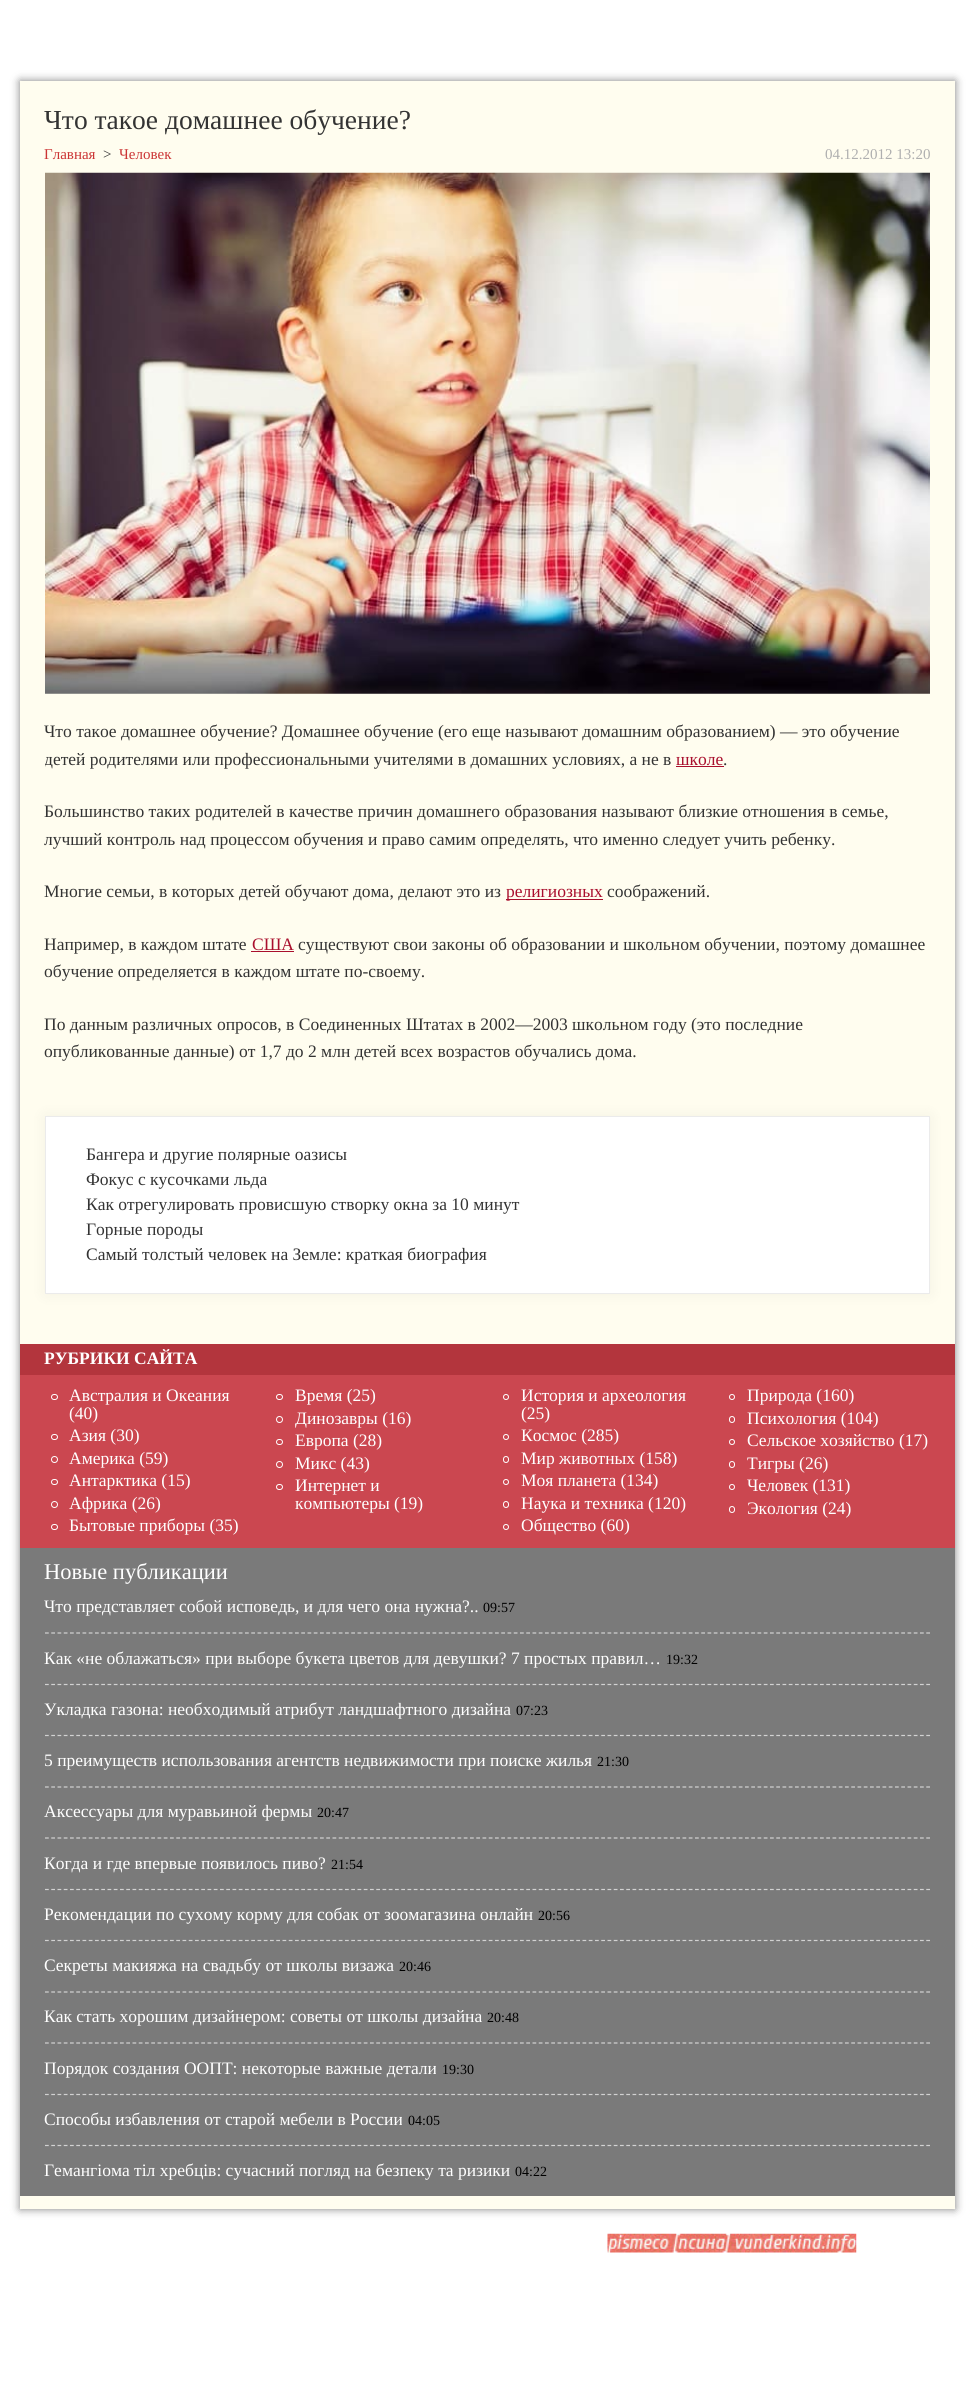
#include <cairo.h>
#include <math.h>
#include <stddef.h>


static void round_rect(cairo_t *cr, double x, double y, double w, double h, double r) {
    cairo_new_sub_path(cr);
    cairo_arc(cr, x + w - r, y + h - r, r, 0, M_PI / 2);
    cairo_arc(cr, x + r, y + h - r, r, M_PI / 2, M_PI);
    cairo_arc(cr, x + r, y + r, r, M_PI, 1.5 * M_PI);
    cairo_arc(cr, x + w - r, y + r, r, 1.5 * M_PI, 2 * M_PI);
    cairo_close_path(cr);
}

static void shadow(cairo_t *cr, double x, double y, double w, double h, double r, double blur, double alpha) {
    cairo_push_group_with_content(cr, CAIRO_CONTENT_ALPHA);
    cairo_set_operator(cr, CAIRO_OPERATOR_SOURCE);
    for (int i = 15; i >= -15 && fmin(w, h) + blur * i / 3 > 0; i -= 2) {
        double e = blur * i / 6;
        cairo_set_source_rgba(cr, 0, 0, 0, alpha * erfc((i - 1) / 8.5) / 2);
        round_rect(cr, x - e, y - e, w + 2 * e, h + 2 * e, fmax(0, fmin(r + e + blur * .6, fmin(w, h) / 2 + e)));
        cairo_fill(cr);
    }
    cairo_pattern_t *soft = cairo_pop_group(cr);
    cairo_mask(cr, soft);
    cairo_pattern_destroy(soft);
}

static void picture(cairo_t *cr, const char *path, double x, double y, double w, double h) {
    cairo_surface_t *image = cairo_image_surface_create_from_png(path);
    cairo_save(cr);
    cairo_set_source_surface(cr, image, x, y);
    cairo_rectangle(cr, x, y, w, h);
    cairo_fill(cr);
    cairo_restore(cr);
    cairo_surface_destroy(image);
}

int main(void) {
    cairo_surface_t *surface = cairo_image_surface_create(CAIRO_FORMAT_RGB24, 974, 2405);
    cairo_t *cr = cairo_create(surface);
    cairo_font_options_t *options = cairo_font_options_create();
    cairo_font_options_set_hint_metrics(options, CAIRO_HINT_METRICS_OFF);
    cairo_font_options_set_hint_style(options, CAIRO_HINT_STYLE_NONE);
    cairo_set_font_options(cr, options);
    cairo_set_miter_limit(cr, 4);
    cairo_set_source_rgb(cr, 1, 1, 1);
    cairo_paint(cr);
    cairo_set_source_rgb(cr, 0, 0, 0);
    shadow(cr, 20, 81, 935, 2128, 0, 4.5, 0.5);
    cairo_set_source_rgb(cr, 1, 0.992, 0.937);
    cairo_rectangle(cr, 20, 81, 935, 2128);
    cairo_fill(cr);
    cairo_select_font_face(cr, "Liberation Serif", CAIRO_FONT_SLANT_NORMAL, CAIRO_FONT_WEIGHT_NORMAL);
    cairo_set_font_size(cr, 27.5);
    cairo_set_source_rgb(cr, 0.2, 0.2, 0.2);
    cairo_move_to(cr, 44, 129);
    cairo_show_text(cr, "Что такое домашнее обучение?");
    cairo_set_font_size(cr, 15);
    cairo_set_source_rgb(cr, 0.796, 0.204, 0.204);
    cairo_move_to(cr, 44, 159);
    cairo_show_text(cr, "Главная");
    cairo_set_source_rgb(cr, 0.2, 0.2, 0.2);
    cairo_move_to(cr, 103, 159);
    cairo_show_text(cr, ">");
    cairo_set_source_rgb(cr, 0.796, 0.204, 0.204);
    cairo_move_to(cr, 119, 159);
    cairo_show_text(cr, "Человек");
    cairo_set_source_rgb(cr, 0.686, 0.686, 0.686);
    cairo_move_to(cr, 825, 159);
    cairo_show_text(cr, "04.12.2012 13:20");
    picture(cr, "img1.png", 45, 172, 885, 522);
    cairo_set_font_size(cr, 17.5);
    cairo_set_source_rgb(cr, 0.2, 0.2, 0.2);
    cairo_move_to(cr, 44, 737);
    cairo_show_text(cr, "Что такое домашнее обучение? Домашнее обучение (его еще называют домашним образованием) — это обучение");
    cairo_save(cr);
    cairo_rectangle(cr, 45, 173, 885, 918);
    cairo_clip(cr);
    cairo_move_to(cr, 44, 765);
    cairo_show_text(cr, "детей родителями или профессиональными учителями в домашних условиях, а не в");
    cairo_restore(cr);
    cairo_set_source_rgb(cr, 0.663, 0.059, 0.176);
    cairo_move_to(cr, 676, 765);
    cairo_show_text(cr, "школе");
    cairo_rectangle(cr, 676, 766, 48, 1);
    cairo_fill(cr);
    cairo_set_source_rgb(cr, 0.2, 0.2, 0.2);
    cairo_move_to(cr, 723, 765);
    cairo_show_text(cr, ".");
    cairo_move_to(cr, 44, 817);
    cairo_show_text(cr, "Большинство таких родителей в качестве причин домашнего образования называют близкие отношения в семье,");
    cairo_move_to(cr, 44, 845);
    cairo_show_text(cr, "лучший контроль над процессом обучения и право самим определять, что именно следует учить ребенку.");
    cairo_move_to(cr, 44, 897);
    cairo_show_text(cr, "Многие семьи, в которых детей обучают дома, делают это из");
    cairo_set_source_rgb(cr, 0.663, 0.059, 0.176);
    cairo_rectangle(cr, 506, 899, 97, 1);
    cairo_fill(cr);
    cairo_move_to(cr, 506, 897);
    cairo_show_text(cr, "религиозных");
    cairo_set_source_rgb(cr, 0.2, 0.2, 0.2);
    cairo_move_to(cr, 607, 897);
    cairo_show_text(cr, "соображений.");
    cairo_move_to(cr, 44, 950);
    cairo_show_text(cr, "Например, в каждом штате");
    cairo_set_source_rgb(cr, 0.663, 0.059, 0.176);
    cairo_move_to(cr, 252, 950);
    cairo_show_text(cr, "США");
    cairo_rectangle(cr, 251, 951, 43, 1);
    cairo_fill(cr);
    cairo_set_source_rgb(cr, 0.2, 0.2, 0.2);
    cairo_move_to(cr, 298, 950);
    cairo_show_text(cr, "существуют свои законы об образовании и школьном обучении, поэтому домашнее");
    cairo_move_to(cr, 44, 977);
    cairo_show_text(cr, "обучение определяется в каждом штате по-своему.");
    cairo_move_to(cr, 44, 1030);
    cairo_show_text(cr, "По данным различных опросов, в Соединенных Штатах в 2002—2003 школьном году (это последние");
    cairo_move_to(cr, 44, 1057);
    cairo_show_text(cr, "опубликованные данные) от 1,7 до 2 млн детей всех возрастов обучались дома.");
    cairo_set_source_rgb(cr, 0, 0, 0);
    shadow(cr, 45, 1116, 885, 178, 0, 7.5, 0.05);
    cairo_set_source_rgb(cr, 1, 1, 1);
    cairo_rectangle(cr, 45.5, 1116.5, 884, 177);
    cairo_fill_preserve(cr);
    cairo_set_source_rgb(cr, 0.918, 0.918, 0.918);
    cairo_set_line_width(cr, 1);
    cairo_stroke(cr);
    cairo_set_source_rgb(cr, 0.2, 0.2, 0.2);
    cairo_move_to(cr, 86, 1160);
    cairo_show_text(cr, "Бангера и другие полярные оазисы");
    cairo_move_to(cr, 86, 1185);
    cairo_show_text(cr, "Фокус с кусочками льда");
    cairo_move_to(cr, 86, 1210);
    cairo_show_text(cr, "Как отрегулировать провисшую створку окна за 10 минут");
    cairo_move_to(cr, 86, 1235);
    cairo_show_text(cr, "Горные породы");
    cairo_move_to(cr, 86, 1260);
    cairo_show_text(cr, "Самый толстый человек на Земле: краткая биография");
    cairo_set_source_rgb(cr, 0.702, 0.208, 0.239);
    cairo_rectangle(cr, 20, 1344, 935, 31);
    cairo_fill(cr);
    cairo_select_font_face(cr, "Liberation Serif", CAIRO_FONT_SLANT_NORMAL, CAIRO_FONT_WEIGHT_BOLD);
    cairo_set_source_rgb(cr, 1, 1, 1);
    cairo_move_to(cr, 44, 1364);
    cairo_show_text(cr, "РУБРИКИ САЙТА");
    cairo_set_source_rgb(cr, 0.796, 0.278, 0.314);
    cairo_rectangle(cr, 20, 1375, 935, 173);
    cairo_fill(cr);
    round_rect(cr, 51.5, 1394.5, 6, 5, 2.5);
    cairo_set_source_rgb(cr, 1, 1, 1);
    cairo_stroke(cr);
    cairo_select_font_face(cr, "Liberation Serif", CAIRO_FONT_SLANT_NORMAL, CAIRO_FONT_WEIGHT_NORMAL);
    cairo_move_to(cr, 69, 1401);
    cairo_show_text(cr, "Австралия и Океания");
    cairo_move_to(cr, 69, 1419);
    cairo_show_text(cr, "(40)");
    round_rect(cr, 276.5, 1394.5, 6, 5, 2.5);
    cairo_stroke(cr);
    cairo_move_to(cr, 295, 1401);
    cairo_show_text(cr, "Время (25)");
    cairo_new_path(cr);
    cairo_arc(cr, 506, 1397, 2.5, 0, 2 * M_PI);
    cairo_stroke(cr);
    cairo_move_to(cr, 521, 1401);
    cairo_show_text(cr, "История и археология");
    cairo_move_to(cr, 521, 1419);
    cairo_show_text(cr, "(25)");
    cairo_new_path(cr);
    cairo_arc(cr, 732, 1397, 2.5, 0, 2 * M_PI);
    cairo_stroke(cr);
    cairo_move_to(cr, 747, 1401);
    cairo_show_text(cr, "Природа (160)");
    cairo_new_path(cr);
    cairo_arc(cr, 279.5, 1419.5, 3, 0, 2 * M_PI);
    cairo_stroke(cr);
    cairo_move_to(cr, 295, 1424);
    cairo_show_text(cr, "Динозавры (16)");
    round_rect(cr, 729.5, 1416.5, 5, 6, 2.5);
    cairo_stroke(cr);
    cairo_move_to(cr, 747, 1424);
    cairo_show_text(cr, "Психология (104)");
    round_rect(cr, 51.5, 1434.5, 6, 5, 2.5);
    cairo_stroke(cr);
    cairo_move_to(cr, 69, 1441);
    cairo_show_text(cr, "Азия (30)");
    round_rect(cr, 276.5, 1439.5, 6, 5, 2.5);
    cairo_stroke(cr);
    cairo_move_to(cr, 295, 1446);
    cairo_show_text(cr, "Европа (28)");
    cairo_new_path(cr);
    cairo_arc(cr, 506, 1437, 2.5, 0, 2 * M_PI);
    cairo_stroke(cr);
    cairo_move_to(cr, 521, 1441);
    cairo_show_text(cr, "Космос (285)");
    cairo_new_path(cr);
    cairo_arc(cr, 732, 1442, 2.5, 0, 2 * M_PI);
    cairo_stroke(cr);
    cairo_move_to(cr, 747, 1446);
    cairo_show_text(cr, "Сельское хозяйство (17)");
    cairo_new_path(cr);
    cairo_arc(cr, 54.5, 1459.5, 3, 0, 2 * M_PI);
    cairo_stroke(cr);
    cairo_move_to(cr, 69, 1464);
    cairo_show_text(cr, "Америка (59)");
    cairo_new_path(cr);
    cairo_arc(cr, 279.5, 1464.5, 3, 0, 2 * M_PI);
    cairo_stroke(cr);
    cairo_move_to(cr, 295, 1469);
    cairo_show_text(cr, "Микс (43)");
    round_rect(cr, 503.5, 1456.5, 5, 6, 2.5);
    cairo_stroke(cr);
    cairo_move_to(cr, 521, 1464);
    cairo_show_text(cr, "Мир животных (158)");
    round_rect(cr, 729.5, 1461.5, 5, 6, 2.5);
    cairo_stroke(cr);
    cairo_move_to(cr, 747, 1469);
    cairo_show_text(cr, "Тигры (26)");
    round_rect(cr, 51.5, 1479.5, 6, 5, 2.5);
    cairo_stroke(cr);
    cairo_move_to(cr, 69, 1486);
    cairo_show_text(cr, "Антарктика (15)");
    round_rect(cr, 276.5, 1484.5, 6, 5, 2.5);
    cairo_stroke(cr);
    cairo_move_to(cr, 295, 1491);
    cairo_show_text(cr, "Интернет и");
    cairo_move_to(cr, 295, 1509);
    cairo_show_text(cr, "компьютеры (19)");
    cairo_new_path(cr);
    cairo_arc(cr, 506, 1482, 2.5, 0, 2 * M_PI);
    cairo_stroke(cr);
    cairo_move_to(cr, 521, 1486);
    cairo_show_text(cr, "Моя планета (134)");
    cairo_new_path(cr);
    cairo_arc(cr, 732, 1487, 2.5, 0, 2 * M_PI);
    cairo_stroke(cr);
    cairo_move_to(cr, 747, 1491);
    cairo_show_text(cr, "Человек (131)");
    cairo_new_path(cr);
    cairo_arc(cr, 54.5, 1504.5, 3, 0, 2 * M_PI);
    cairo_stroke(cr);
    cairo_move_to(cr, 69, 1509);
    cairo_show_text(cr, "Африка (26)");
    round_rect(cr, 503.5, 1501.5, 5, 6, 2.5);
    cairo_stroke(cr);
    cairo_move_to(cr, 521, 1509);
    cairo_show_text(cr, "Наука и техника (120)");
    round_rect(cr, 729.5, 1506.5, 5, 6, 2.5);
    cairo_stroke(cr);
    cairo_move_to(cr, 747, 1514);
    cairo_show_text(cr, "Экология (24)");
    round_rect(cr, 51.5, 1524.5, 6, 5, 2.5);
    cairo_stroke(cr);
    cairo_move_to(cr, 69, 1531);
    cairo_show_text(cr, "Бытовые приборы (35)");
    cairo_new_path(cr);
    cairo_arc(cr, 506, 1527, 2.5, 0, 2 * M_PI);
    cairo_stroke(cr);
    cairo_move_to(cr, 521, 1531);
    cairo_show_text(cr, "Общество (60)");
    cairo_set_source_rgb(cr, 0.478, 0.478, 0.478);
    cairo_rectangle(cr, 20, 1548, 935, 648);
    cairo_fill(cr);
    cairo_set_font_size(cr, 22.5);
    cairo_set_source_rgb(cr, 1, 1, 1);
    cairo_move_to(cr, 44, 1579);
    cairo_show_text(cr, "Новые публикации");
    cairo_new_path(cr);
    cairo_move_to(cr, 45, 1633);
    cairo_line_to(cr, 930, 1633);
    cairo_set_source_rgb(cr, 0.824, 0.824, 0.824);
    cairo_set_line_width(cr, 1.2);
    cairo_set_dash(cr, (double[]){3.75, 2.5}, 2, 0);
    cairo_stroke(cr);
    cairo_set_font_size(cr, 17.5);
    cairo_set_source_rgb(cr, 1, 1, 1);
    cairo_move_to(cr, 44, 1612);
    cairo_show_text(cr, "Что представляет собой исповедь, и для чего она нужна?..");
    cairo_set_font_size(cr, 14);
    cairo_set_source_rgb(cr, 0, 0, 0);
    cairo_move_to(cr, 483, 1612);
    cairo_show_text(cr, "09:57");
    cairo_new_path(cr);
    cairo_move_to(cr, 45, 1684.5);
    cairo_line_to(cr, 930, 1684.5);
    cairo_set_source_rgb(cr, 0.824, 0.824, 0.824);
    cairo_stroke(cr);
    cairo_set_font_size(cr, 17.5);
    cairo_set_source_rgb(cr, 1, 1, 1);
    cairo_move_to(cr, 44, 1664);
    cairo_show_text(cr, "Как «не облажаться» при выборе букета цветов для девушки? 7 простых правил…");
    cairo_set_font_size(cr, 14);
    cairo_set_source_rgb(cr, 0, 0, 0);
    cairo_move_to(cr, 666, 1664);
    cairo_show_text(cr, "19:32");
    cairo_new_path(cr);
    cairo_move_to(cr, 45, 1735.5);
    cairo_line_to(cr, 930, 1735.5);
    cairo_set_source_rgb(cr, 0.824, 0.824, 0.824);
    cairo_stroke(cr);
    cairo_set_font_size(cr, 17.5);
    cairo_set_source_rgb(cr, 1, 1, 1);
    cairo_move_to(cr, 44, 1715);
    cairo_show_text(cr, "Укладка газона: необходимый атрибут ландшафтного дизайна");
    cairo_set_font_size(cr, 14);
    cairo_set_source_rgb(cr, 0, 0, 0);
    cairo_move_to(cr, 516, 1715);
    cairo_show_text(cr, "07:23");
    cairo_new_path(cr);
    cairo_move_to(cr, 45, 1787);
    cairo_line_to(cr, 930, 1787);
    cairo_set_source_rgb(cr, 0.824, 0.824, 0.824);
    cairo_stroke(cr);
    cairo_set_font_size(cr, 17.5);
    cairo_set_source_rgb(cr, 1, 1, 1);
    cairo_move_to(cr, 44, 1766);
    cairo_show_text(cr, "5 преимуществ использования агентств недвижимости при поиске жилья");
    cairo_set_font_size(cr, 14);
    cairo_set_source_rgb(cr, 0, 0, 0);
    cairo_move_to(cr, 597, 1766);
    cairo_show_text(cr, "21:30");
    cairo_new_path(cr);
    cairo_move_to(cr, 45, 1838);
    cairo_line_to(cr, 930, 1838);
    cairo_set_source_rgb(cr, 0.824, 0.824, 0.824);
    cairo_stroke(cr);
    cairo_set_font_size(cr, 17.5);
    cairo_set_source_rgb(cr, 1, 1, 1);
    cairo_move_to(cr, 44, 1817);
    cairo_show_text(cr, "Аксессуары для муравьиной фермы");
    cairo_set_font_size(cr, 14);
    cairo_set_source_rgb(cr, 0, 0, 0);
    cairo_move_to(cr, 317, 1817);
    cairo_show_text(cr, "20:47");
    cairo_new_path(cr);
    cairo_move_to(cr, 45, 1889.5);
    cairo_line_to(cr, 930, 1889.5);
    cairo_set_source_rgb(cr, 0.824, 0.824, 0.824);
    cairo_stroke(cr);
    cairo_set_font_size(cr, 17.5);
    cairo_set_source_rgb(cr, 1, 1, 1);
    cairo_move_to(cr, 44, 1869);
    cairo_show_text(cr, "Когда и где впервые появилось пиво?");
    cairo_set_font_size(cr, 14);
    cairo_set_source_rgb(cr, 0, 0, 0);
    cairo_move_to(cr, 331, 1869);
    cairo_show_text(cr, "21:54");
    cairo_new_path(cr);
    cairo_move_to(cr, 45, 1940.5);
    cairo_line_to(cr, 930, 1940.5);
    cairo_set_source_rgb(cr, 0.824, 0.824, 0.824);
    cairo_stroke(cr);
    cairo_set_font_size(cr, 17.5);
    cairo_set_source_rgb(cr, 1, 1, 1);
    cairo_move_to(cr, 44, 1920);
    cairo_show_text(cr, "Рекомендации по сухому корму для собак от зоомагазина онлайн");
    cairo_set_font_size(cr, 14);
    cairo_set_source_rgb(cr, 0, 0, 0);
    cairo_move_to(cr, 538, 1920);
    cairo_show_text(cr, "20:56");
    cairo_new_path(cr);
    cairo_move_to(cr, 45, 1992);
    cairo_line_to(cr, 930, 1992);
    cairo_set_source_rgb(cr, 0.824, 0.824, 0.824);
    cairo_stroke(cr);
    cairo_set_font_size(cr, 17.5);
    cairo_set_source_rgb(cr, 1, 1, 1);
    cairo_move_to(cr, 44, 1971);
    cairo_show_text(cr, "Секреты макияжа на свадьбу от школы визажа");
    cairo_set_font_size(cr, 14);
    cairo_set_source_rgb(cr, 0, 0, 0);
    cairo_move_to(cr, 399, 1971);
    cairo_show_text(cr, "20:46");
    cairo_new_path(cr);
    cairo_move_to(cr, 45, 2043);
    cairo_line_to(cr, 930, 2043);
    cairo_set_source_rgb(cr, 0.824, 0.824, 0.824);
    cairo_stroke(cr);
    cairo_set_font_size(cr, 17.5);
    cairo_set_source_rgb(cr, 1, 1, 1);
    cairo_move_to(cr, 44, 2022);
    cairo_show_text(cr, "Как стать хорошим дизайнером: советы от школы дизайна");
    cairo_set_font_size(cr, 14);
    cairo_set_source_rgb(cr, 0, 0, 0);
    cairo_move_to(cr, 487, 2022);
    cairo_show_text(cr, "20:48");
    cairo_new_path(cr);
    cairo_move_to(cr, 45, 2094.5);
    cairo_line_to(cr, 930, 2094.5);
    cairo_set_source_rgb(cr, 0.824, 0.824, 0.824);
    cairo_stroke(cr);
    cairo_set_font_size(cr, 17.5);
    cairo_set_source_rgb(cr, 1, 1, 1);
    cairo_move_to(cr, 44, 2074);
    cairo_show_text(cr, "Порядок создания ООПТ: некоторые важные детали");
    cairo_set_font_size(cr, 14);
    cairo_set_source_rgb(cr, 0, 0, 0);
    cairo_move_to(cr, 442, 2074);
    cairo_show_text(cr, "19:30");
    cairo_new_path(cr);
    cairo_move_to(cr, 45, 2145.5);
    cairo_line_to(cr, 930, 2145.5);
    cairo_set_source_rgb(cr, 0.824, 0.824, 0.824);
    cairo_stroke(cr);
    cairo_set_font_size(cr, 17.5);
    cairo_set_source_rgb(cr, 1, 1, 1);
    cairo_move_to(cr, 44, 2125);
    cairo_show_text(cr, "Способы избавления от старой мебели в России");
    cairo_set_font_size(cr, 14);
    cairo_set_source_rgb(cr, 0, 0, 0);
    cairo_move_to(cr, 408, 2125);
    cairo_show_text(cr, "04:05");
    cairo_set_font_size(cr, 17.5);
    cairo_set_source_rgb(cr, 1, 1, 1);
    cairo_move_to(cr, 44, 2176);
    cairo_show_text(cr, "Гемангіома тіл хребців: сучасний погляд на безпеку та ризики");
    cairo_set_font_size(cr, 14);
    cairo_set_source_rgb(cr, 0, 0, 0);
    cairo_move_to(cr, 515, 2176);
    cairo_show_text(cr, "04:22");
    picture(cr, "img2.png", 607, 2233, 250, 20);
    cairo_surface_write_to_png(surface, "page.png");
    cairo_font_options_destroy(options);
    cairo_destroy(cr);
    cairo_surface_destroy(surface);
    return 0;
}
